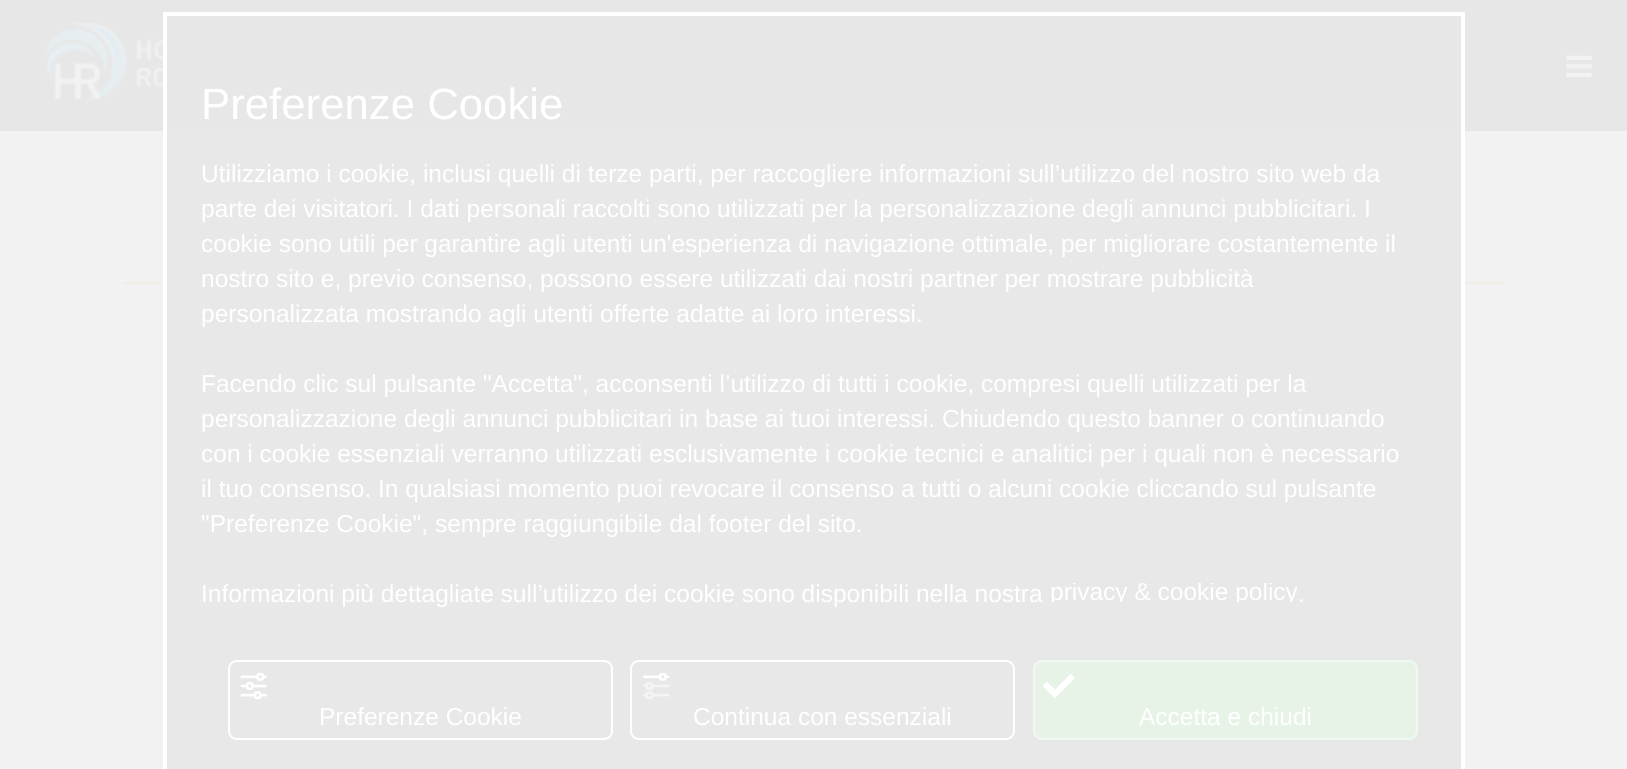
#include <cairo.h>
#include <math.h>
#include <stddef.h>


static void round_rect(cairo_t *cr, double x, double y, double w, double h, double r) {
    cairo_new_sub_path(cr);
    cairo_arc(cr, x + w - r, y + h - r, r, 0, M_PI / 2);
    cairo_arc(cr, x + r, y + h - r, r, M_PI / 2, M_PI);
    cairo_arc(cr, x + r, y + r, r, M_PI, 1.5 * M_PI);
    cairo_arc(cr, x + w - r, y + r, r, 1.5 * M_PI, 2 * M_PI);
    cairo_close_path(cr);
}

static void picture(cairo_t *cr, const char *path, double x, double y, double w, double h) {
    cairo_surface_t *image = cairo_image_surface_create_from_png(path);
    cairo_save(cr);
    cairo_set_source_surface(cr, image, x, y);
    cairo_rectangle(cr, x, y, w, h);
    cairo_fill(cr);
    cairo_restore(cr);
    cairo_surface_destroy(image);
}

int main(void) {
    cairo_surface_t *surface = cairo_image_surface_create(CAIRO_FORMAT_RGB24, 1627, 769);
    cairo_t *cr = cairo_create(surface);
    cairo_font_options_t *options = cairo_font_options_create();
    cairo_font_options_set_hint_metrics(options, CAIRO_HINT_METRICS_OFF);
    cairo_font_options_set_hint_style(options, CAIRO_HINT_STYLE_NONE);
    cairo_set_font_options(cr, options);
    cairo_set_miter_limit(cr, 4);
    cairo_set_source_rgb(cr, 0.949, 0.949, 0.949);
    cairo_paint(cr);
    cairo_set_source_rgb(cr, 0.91, 0.906, 0.906);
    cairo_rectangle(cr, 0, 0, 1627, 131);
    cairo_fill(cr);
    picture(cr, "img1.png", 43, 22, 120, 80);
    picture(cr, "img2.png", 1566, 55, 26, 22);
    cairo_set_source_rgb(cr, 0.949, 0.925, 0.89);
    cairo_rectangle(cr, 123, 282, 1382, 2);
    cairo_fill(cr);
    cairo_set_source_rgb(cr, 0.91, 0.91, 0.91);
    cairo_rectangle(cr, 167, 131, 1294, 638);
    cairo_fill(cr);
    cairo_rectangle(cr, 165, 14, 1298, 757);
    cairo_set_source_rgb(cr, 1, 1, 1);
    cairo_set_line_width(cr, 4);
    cairo_stroke(cr);
    cairo_select_font_face(cr, "Liberation Sans", CAIRO_FONT_SLANT_NORMAL, CAIRO_FONT_WEIGHT_NORMAL);
    cairo_set_font_size(cr, 43.75);
    cairo_move_to(cr, 201, 119);
    cairo_show_text(cr, "Preferenze Cookie");
    cairo_set_font_size(cr, 24.5);
    cairo_move_to(cr, 201, 182);
    cairo_show_text(cr, "Utilizziamo i cookie, inclusi quelli di terze parti, per raccogliere informazioni sull’utilizzo del nostro sito web da");
    cairo_move_to(cr, 201, 217);
    cairo_show_text(cr, "parte dei visitatori. I dati personali raccolti sono utilizzati per la personalizzazione degli annunci pubblicitari. I");
    cairo_move_to(cr, 201, 252);
    cairo_show_text(cr, "cookie sono utili per garantire agli utenti un'esperienza di navigazione ottimale, per migliorare costantemente il");
    cairo_move_to(cr, 201, 287);
    cairo_show_text(cr, "nostro sito e, previo consenso, possono essere utilizzati dai nostri partner per mostrare pubblicità");
    cairo_move_to(cr, 201, 322);
    cairo_show_text(cr, "personalizzata mostrando agli utenti offerte adatte ai loro interessi.");
    cairo_move_to(cr, 201, 392);
    cairo_show_text(cr, "Facendo clic sul pulsante \"Accetta\", acconsenti l’utilizzo di tutti i cookie, compresi quelli utilizzati per la");
    cairo_move_to(cr, 201, 427);
    cairo_show_text(cr, "personalizzazione degli annunci pubblicitari in base ai tuoi interessi. Chiudendo questo banner o continuando");
    cairo_move_to(cr, 201, 462);
    cairo_show_text(cr, "con i cookie essenziali verranno utilizzati esclusivamente i cookie tecnici e analitici per i quali non è necessario");
    cairo_move_to(cr, 201, 497);
    cairo_show_text(cr, "il tuo consenso. In qualsiasi momento puoi revocare il consenso a tutti o alcuni cookie cliccando sul pulsante");
    cairo_move_to(cr, 201, 532);
    cairo_show_text(cr, "\"Preferenze Cookie\", sempre raggiungibile dal footer del sito.");
    cairo_move_to(cr, 201, 602);
    cairo_show_text(cr, "Informazioni più dettagliate sull’utilizzo dei cookie sono disponibili nella nostra");
    cairo_save(cr);
    cairo_rectangle(cr, 1050, 583, 247, 19);
    cairo_clip(cr);
    cairo_move_to(cr, 1050, 600);
    cairo_show_text(cr, "privacy & cookie policy");
    cairo_restore(cr);
    cairo_move_to(cr, 1298, 602);
    cairo_show_text(cr, ".");
    round_rect(cr, 229, 661, 383, 78, 8);
    cairo_set_line_width(cr, 2);
    cairo_stroke(cr);
    picture(cr, "img3.png", 240, 672, 27, 28);
    cairo_move_to(cr, 319, 725);
    cairo_show_text(cr, "Preferenze Cookie");
    round_rect(cr, 631, 661, 383, 78, 8);
    cairo_stroke(cr);
    picture(cr, "img4.png", 643, 672, 27, 28);
    cairo_move_to(cr, 693, 725);
    cairo_show_text(cr, "Continua con essenziali");
    cairo_set_source_rgb(cr, 0.902, 0.953, 0.902);
    round_rect(cr, 1034, 661, 383, 78, 8);
    cairo_fill_preserve(cr);
    cairo_set_source_rgb(cr, 0.937, 0.976, 0.937);
    cairo_stroke(cr);
    picture(cr, "img5.png", 1043, 674, 32, 24);
    cairo_set_source_rgb(cr, 1, 1, 1);
    cairo_move_to(cr, 1139, 725);
    cairo_show_text(cr, "Accetta e chiudi");
    cairo_surface_write_to_png(surface, "page.png");
    cairo_font_options_destroy(options);
    cairo_destroy(cr);
    cairo_surface_destroy(surface);
    return 0;
}
